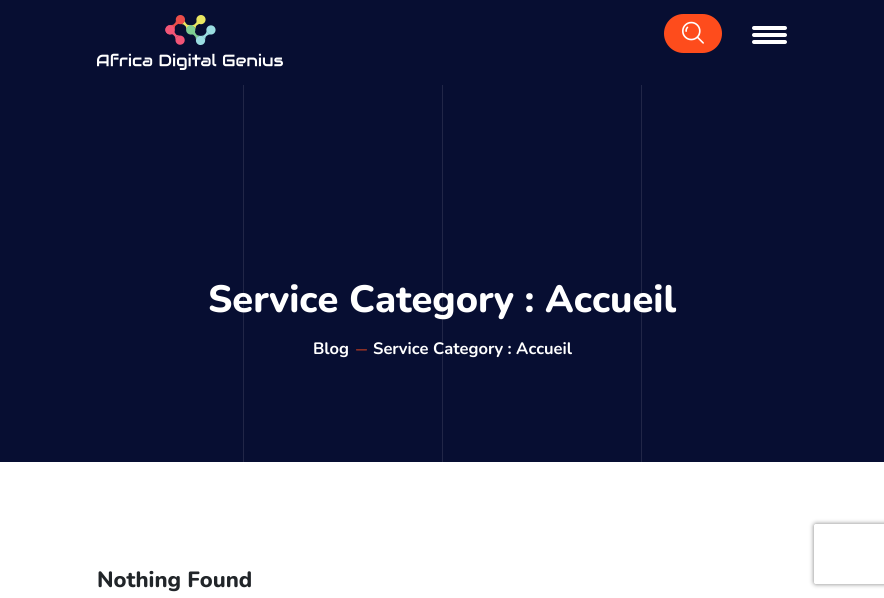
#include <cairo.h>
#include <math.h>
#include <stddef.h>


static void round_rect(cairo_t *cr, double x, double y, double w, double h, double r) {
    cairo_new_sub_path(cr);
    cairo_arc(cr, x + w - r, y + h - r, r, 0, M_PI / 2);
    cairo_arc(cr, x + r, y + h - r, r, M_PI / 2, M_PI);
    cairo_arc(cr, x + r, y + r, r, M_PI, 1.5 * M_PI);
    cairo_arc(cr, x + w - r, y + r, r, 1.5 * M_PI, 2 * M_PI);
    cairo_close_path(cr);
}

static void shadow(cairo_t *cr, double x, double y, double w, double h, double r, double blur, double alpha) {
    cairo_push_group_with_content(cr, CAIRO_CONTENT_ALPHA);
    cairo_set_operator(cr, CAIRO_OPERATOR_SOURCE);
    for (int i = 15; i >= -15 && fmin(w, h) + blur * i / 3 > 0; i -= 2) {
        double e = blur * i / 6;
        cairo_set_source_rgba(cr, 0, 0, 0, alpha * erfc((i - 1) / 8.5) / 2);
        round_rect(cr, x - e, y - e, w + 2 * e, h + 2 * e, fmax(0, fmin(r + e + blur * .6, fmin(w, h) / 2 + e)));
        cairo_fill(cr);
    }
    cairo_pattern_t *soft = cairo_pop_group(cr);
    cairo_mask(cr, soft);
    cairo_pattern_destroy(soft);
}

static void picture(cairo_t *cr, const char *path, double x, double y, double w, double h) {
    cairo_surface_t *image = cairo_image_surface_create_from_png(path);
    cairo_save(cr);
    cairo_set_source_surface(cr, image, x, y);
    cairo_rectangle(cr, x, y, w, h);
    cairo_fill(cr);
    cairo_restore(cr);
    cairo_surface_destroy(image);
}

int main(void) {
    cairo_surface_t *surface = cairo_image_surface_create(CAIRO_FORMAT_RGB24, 884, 598);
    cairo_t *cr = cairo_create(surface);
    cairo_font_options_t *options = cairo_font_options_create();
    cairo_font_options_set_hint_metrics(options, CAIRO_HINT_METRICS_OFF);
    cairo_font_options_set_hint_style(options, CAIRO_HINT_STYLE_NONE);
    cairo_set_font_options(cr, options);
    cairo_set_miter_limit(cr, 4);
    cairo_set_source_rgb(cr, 1, 1, 1);
    cairo_paint(cr);
    cairo_set_source_rgb(cr, 0.031, 0.055, 0.196);
    cairo_rectangle(cr, 0, 0, 884, 462);
    cairo_fill(cr);
    picture(cr, "img1.png", 97, 15, 186, 55);
    cairo_set_source_rgb(cr, 0.996, 0.298, 0.11);
    round_rect(cr, 664, 14, 58, 39, 19.5);
    cairo_fill(cr);
    picture(cr, "img2.png", 682, 21, 22, 23);
    cairo_set_source_rgb(cr, 1, 1, 1);
    round_rect(cr, 752, 26, 35, 4, 2);
    cairo_fill(cr);
    round_rect(cr, 752, 33, 35, 4, 2);
    cairo_fill(cr);
    round_rect(cr, 752, 40, 35, 4, 2);
    cairo_fill(cr);
    cairo_set_source_rgb(cr, 0.129, 0.149, 0.278);
    cairo_rectangle(cr, 243, 85, 1, 377);
    cairo_fill(cr);
    cairo_rectangle(cr, 442, 85, 1, 377);
    cairo_fill(cr);
    cairo_rectangle(cr, 641, 85, 1, 377);
    cairo_fill(cr);
    cairo_select_font_face(cr, "Nunito ExtraBold", CAIRO_FONT_SLANT_NORMAL, CAIRO_FONT_WEIGHT_NORMAL);
    cairo_set_font_size(cr, 38);
    cairo_set_source_rgb(cr, 1, 1, 1);
    cairo_move_to(cr, 208, 312);
    cairo_show_text(cr, "Service Category : Accueil");
    cairo_select_font_face(cr, "Nunito", CAIRO_FONT_SLANT_NORMAL, CAIRO_FONT_WEIGHT_BOLD);
    cairo_set_font_size(cr, 16.5);
    cairo_move_to(cr, 313, 354);
    cairo_show_text(cr, "Blog");
    picture(cr, "img3.png", 356, 349, 11, 2);
    cairo_move_to(cr, 373, 354);
    cairo_show_text(cr, "Service Category : Accueil");
    cairo_select_font_face(cr, "Nunito ExtraBold", CAIRO_FONT_SLANT_NORMAL, CAIRO_FONT_WEIGHT_NORMAL);
    cairo_set_font_size(cr, 22);
    cairo_set_source_rgb(cr, 0.129, 0.145, 0.161);
    cairo_move_to(cr, 97, 587);
    cairo_show_text(cr, "Nothing Found");
    cairo_save(cr);
    cairo_set_fill_rule(cr, CAIRO_FILL_RULE_EVEN_ODD);
    cairo_new_path(cr);
    cairo_move_to(cr, 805, 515);
    cairo_line_to(cr, 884, 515);
    cairo_line_to(cr, 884, 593);
    cairo_line_to(cr, 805, 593);
    cairo_close_path(cr);
    cairo_move_to(cr, 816, 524);
    cairo_line_to(cr, 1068, 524);
    cairo_curve_to(cr, 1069, 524, 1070, 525, 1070, 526);
    cairo_line_to(cr, 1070, 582);
    cairo_curve_to(cr, 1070, 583, 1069, 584, 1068, 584);
    cairo_line_to(cr, 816, 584);
    cairo_curve_to(cr, 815, 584, 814, 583, 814, 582);
    cairo_line_to(cr, 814, 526);
    cairo_curve_to(cr, 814, 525, 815, 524, 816, 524);
    cairo_close_path(cr);
    cairo_clip(cr);
    cairo_set_source_rgb(cr, 0.502, 0.502, 0.502);
    shadow(cr, 814, 524, 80, 60, 2, 2.5, 1);
    cairo_restore(cr);
    cairo_surface_write_to_png(surface, "page.png");
    cairo_font_options_destroy(options);
    cairo_destroy(cr);
    cairo_surface_destroy(surface);
    return 0;
}
